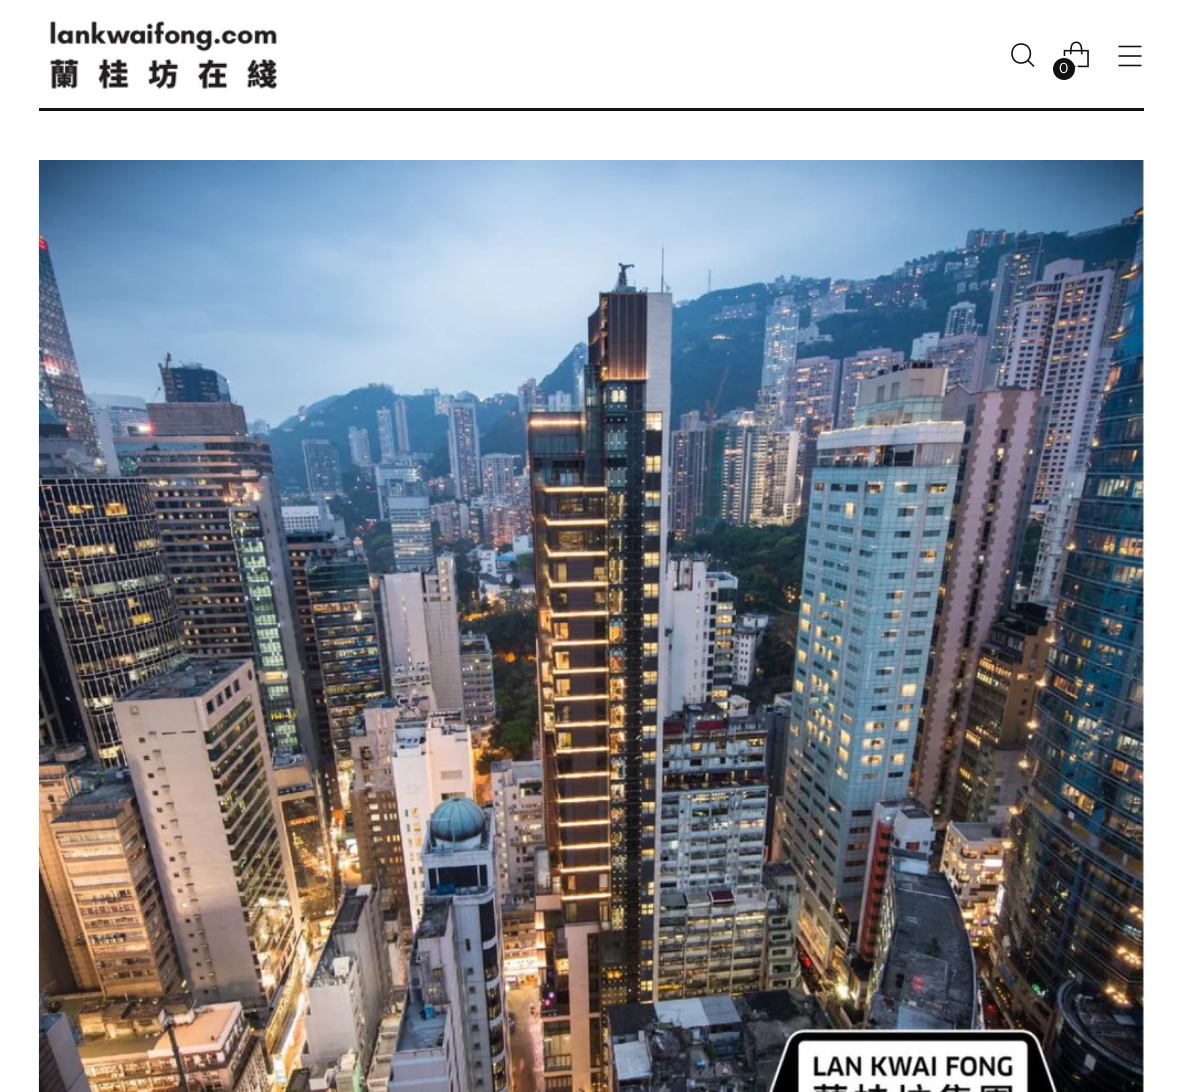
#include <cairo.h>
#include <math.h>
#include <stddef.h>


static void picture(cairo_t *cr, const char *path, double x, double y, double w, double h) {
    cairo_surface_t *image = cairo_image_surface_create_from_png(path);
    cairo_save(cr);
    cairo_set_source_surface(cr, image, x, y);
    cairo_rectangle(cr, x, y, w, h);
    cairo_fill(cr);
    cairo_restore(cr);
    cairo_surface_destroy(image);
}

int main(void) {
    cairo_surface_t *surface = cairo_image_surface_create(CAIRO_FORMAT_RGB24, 1182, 1092);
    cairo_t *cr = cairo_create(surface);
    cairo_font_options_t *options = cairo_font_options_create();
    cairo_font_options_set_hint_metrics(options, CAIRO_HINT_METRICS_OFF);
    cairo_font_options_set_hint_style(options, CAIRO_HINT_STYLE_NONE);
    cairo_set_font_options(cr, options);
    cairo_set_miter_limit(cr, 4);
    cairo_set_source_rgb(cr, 1, 1, 1);
    cairo_paint(cr);
    cairo_set_source_rgb(cr, 0.067, 0.067, 0.067);
    cairo_rectangle(cr, 39, 108, 1105, 3);
    cairo_fill(cr);
    picture(cr, "img1.png", 49, 21, 230, 69);
    cairo_new_path(cr);
    cairo_move_to(cr, 1021, 63);
    cairo_curve_to(cr, 1033.5, 63, 1033.5, 44, 1021, 44);
    cairo_curve_to(cr, 1009, 44, 1009, 63, 1021, 63);
    cairo_close_path(cr);
    cairo_set_line_width(cr, 1.6);
    cairo_set_line_cap(cr, CAIRO_LINE_CAP_ROUND);
    cairo_stroke(cr);
    cairo_new_path(cr);
    cairo_move_to(cr, 1028, 60.5);
    cairo_line_to(cr, 1034, 66.5);
    cairo_set_line_cap(cr, CAIRO_LINE_CAP_BUTT);
    cairo_stroke(cr);
    picture(cr, "img2.png", 1063, 41, 26, 27);
    cairo_arc(cr, 1064.5, 69.5, 12.5, 0, 2 * M_PI);
    cairo_set_source_rgb(cr, 1, 1, 1);
    cairo_set_line_width(cr, 2);
    cairo_stroke(cr);
    cairo_set_source_rgb(cr, 0.067, 0.067, 0.067);
    cairo_arc(cr, 1064, 69, 11, 0, 2 * M_PI);
    cairo_fill(cr);
    cairo_select_font_face(cr, "Instrument Sans", CAIRO_FONT_SLANT_NORMAL, CAIRO_FONT_WEIGHT_NORMAL);
    cairo_set_font_size(cr, 14);
    cairo_set_source_rgb(cr, 1, 1, 1);
    cairo_move_to(cr, 1059, 73);
    cairo_show_text(cr, "0");
    cairo_new_path(cr);
    cairo_move_to(cr, 1118.5, 56);
    cairo_line_to(cr, 1141.5, 56);
    cairo_move_to(cr, 1118.5, 46.5);
    cairo_line_to(cr, 1141.5, 46.5);
    cairo_move_to(cr, 1118.5, 65.5);
    cairo_line_to(cr, 1141.5, 65.5);
    cairo_set_source_rgb(cr, 0.067, 0.067, 0.067);
    cairo_set_line_width(cr, 1.6);
    cairo_stroke(cr);
    picture(cr, "img3.png", 38, 160, 1106, 932);
    cairo_surface_write_to_png(surface, "page.png");
    cairo_font_options_destroy(options);
    cairo_destroy(cr);
    cairo_surface_destroy(surface);
    return 0;
}
